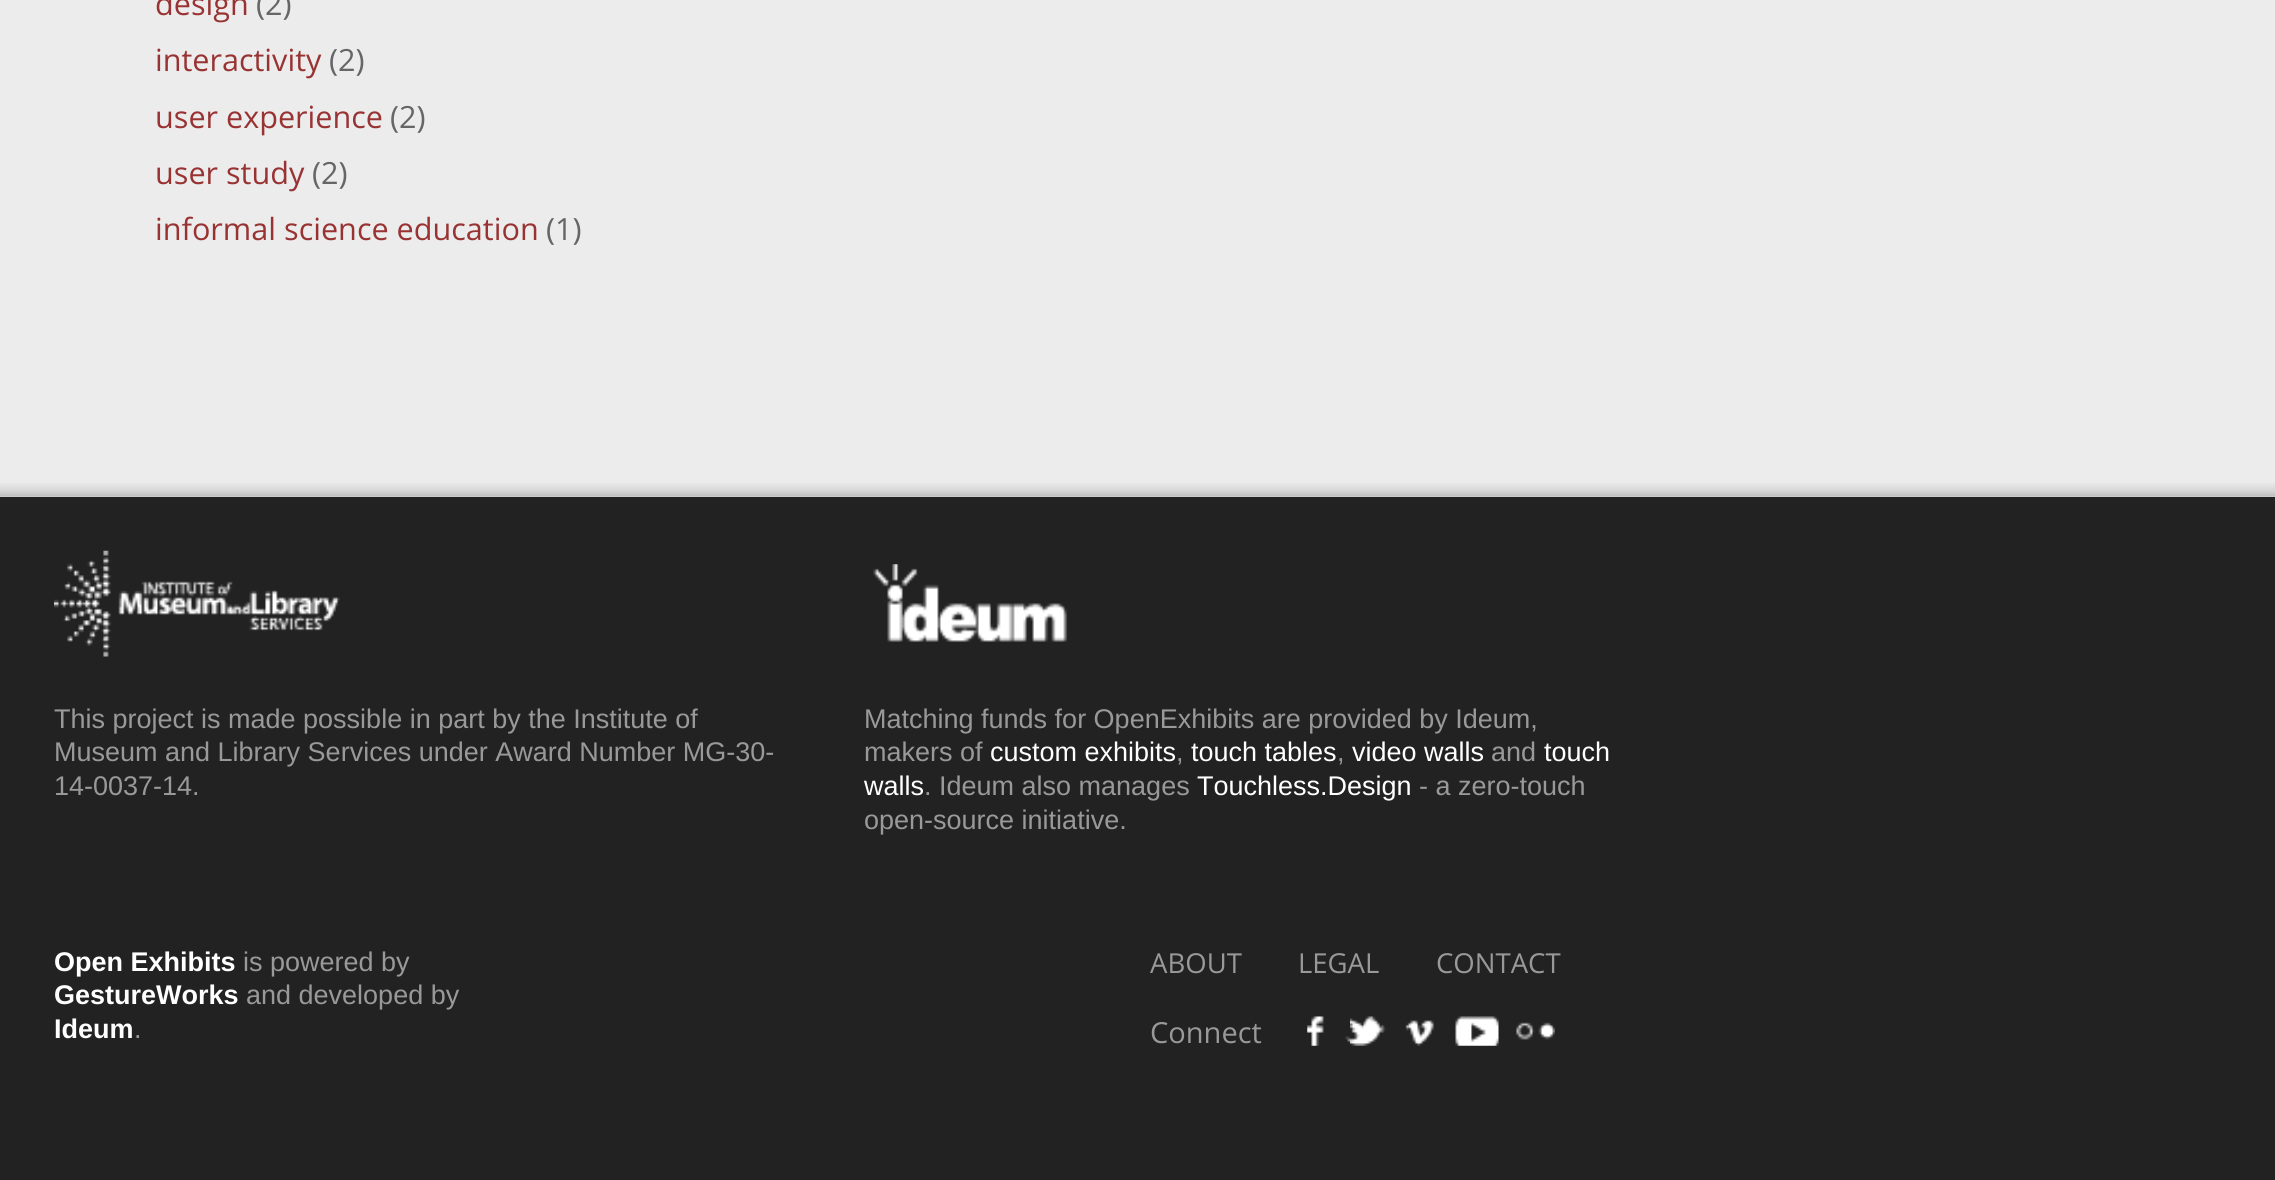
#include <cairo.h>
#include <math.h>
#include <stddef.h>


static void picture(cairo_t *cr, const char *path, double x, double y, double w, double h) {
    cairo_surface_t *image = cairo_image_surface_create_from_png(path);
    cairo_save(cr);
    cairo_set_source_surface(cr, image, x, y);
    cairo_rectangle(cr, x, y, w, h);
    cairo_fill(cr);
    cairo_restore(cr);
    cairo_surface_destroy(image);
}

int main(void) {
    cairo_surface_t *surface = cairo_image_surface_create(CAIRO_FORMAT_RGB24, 2275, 1180);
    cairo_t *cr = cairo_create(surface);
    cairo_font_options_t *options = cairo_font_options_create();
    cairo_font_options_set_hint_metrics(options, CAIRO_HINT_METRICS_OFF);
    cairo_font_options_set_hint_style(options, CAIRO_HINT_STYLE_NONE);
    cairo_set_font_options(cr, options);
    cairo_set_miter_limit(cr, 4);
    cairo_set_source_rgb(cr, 0.133, 0.133, 0.133);
    cairo_paint(cr);
    cairo_set_source_rgb(cr, 0.922, 0.922, 0.922);
    cairo_rectangle(cr, 0, 0, 2275, 497);
    cairo_fill(cr);
    cairo_select_font_face(cr, "Open Sans", CAIRO_FONT_SLANT_NORMAL, CAIRO_FONT_WEIGHT_NORMAL);
    cairo_set_font_size(cr, 30.6);
    cairo_set_source_rgb(cr, 0.6, 0.2, 0.2);
    cairo_move_to(cr, 155, 15);
    cairo_show_text(cr, "design");
    cairo_set_source_rgb(cr, 0.4, 0.4, 0.4);
    cairo_move_to(cr, 256, 15);
    cairo_show_text(cr, "(2)");
    cairo_set_source_rgb(cr, 0.6, 0.2, 0.2);
    cairo_move_to(cr, 155, 71);
    cairo_show_text(cr, "interactivity");
    cairo_set_source_rgb(cr, 0.4, 0.4, 0.4);
    cairo_move_to(cr, 329, 71);
    cairo_show_text(cr, "(2)");
    cairo_set_source_rgb(cr, 0.6, 0.2, 0.2);
    cairo_move_to(cr, 155, 128);
    cairo_show_text(cr, "user experience");
    cairo_set_source_rgb(cr, 0.4, 0.4, 0.4);
    cairo_move_to(cr, 390, 128);
    cairo_show_text(cr, "(2)");
    cairo_set_source_rgb(cr, 0.6, 0.2, 0.2);
    cairo_move_to(cr, 155, 184);
    cairo_show_text(cr, "user study");
    cairo_set_source_rgb(cr, 0.4, 0.4, 0.4);
    cairo_move_to(cr, 312, 184);
    cairo_show_text(cr, "(2)");
    cairo_set_source_rgb(cr, 0.6, 0.2, 0.2);
    cairo_move_to(cr, 155, 240);
    cairo_show_text(cr, "informal science education");
    cairo_set_source_rgb(cr, 0.4, 0.4, 0.4);
    cairo_move_to(cr, 546, 240);
    cairo_show_text(cr, "(1)");
    picture(cr, "img1.png", 0, 483, 2275, 14);
    picture(cr, "img2.png", 54, 550, 286, 107);
    cairo_select_font_face(cr, "Liberation Sans", CAIRO_FONT_SLANT_NORMAL, CAIRO_FONT_WEIGHT_NORMAL);
    cairo_set_font_size(cr, 27);
    cairo_set_source_rgb(cr, 0.6, 0.6, 0.6);
    cairo_move_to(cr, 54, 728);
    cairo_show_text(cr, "This project is made possible in part by the Institute of");
    cairo_move_to(cr, 54, 761);
    cairo_show_text(cr, "Museum and Library Services under Award Number MG-30-");
    cairo_move_to(cr, 54, 795);
    cairo_show_text(cr, "14-0037-14.");
    picture(cr, "img3.png", 873, 564, 195, 78);
    cairo_move_to(cr, 864, 728);
    cairo_show_text(cr, "Matching funds for OpenExhibits are provided by Ideum,");
    cairo_move_to(cr, 864, 761);
    cairo_show_text(cr, "makers of");
    cairo_set_source_rgb(cr, 1, 1, 1);
    cairo_move_to(cr, 990, 761);
    cairo_show_text(cr, "custom exhibits");
    cairo_set_source_rgb(cr, 0.6, 0.6, 0.6);
    cairo_move_to(cr, 1176, 761);
    cairo_show_text(cr, ",");
    cairo_set_source_rgb(cr, 1, 1, 1);
    cairo_move_to(cr, 1191, 761);
    cairo_show_text(cr, "touch tables");
    cairo_set_source_rgb(cr, 0.6, 0.6, 0.6);
    cairo_move_to(cr, 1337, 761);
    cairo_show_text(cr, ",");
    cairo_set_source_rgb(cr, 1, 1, 1);
    cairo_move_to(cr, 1352, 761);
    cairo_show_text(cr, "video walls");
    cairo_set_source_rgb(cr, 0.6, 0.6, 0.6);
    cairo_move_to(cr, 1491, 761);
    cairo_show_text(cr, "and");
    cairo_set_source_rgb(cr, 1, 1, 1);
    cairo_move_to(cr, 1544, 761);
    cairo_show_text(cr, "touch");
    cairo_move_to(cr, 864, 795);
    cairo_show_text(cr, "walls");
    cairo_set_source_rgb(cr, 0.6, 0.6, 0.6);
    cairo_move_to(cr, 924, 795);
    cairo_show_text(cr, ". Ideum also manages");
    cairo_set_source_rgb(cr, 1, 1, 1);
    cairo_move_to(cr, 1197, 795);
    cairo_show_text(cr, "Touchless.Design");
    cairo_set_source_rgb(cr, 0.6, 0.6, 0.6);
    cairo_move_to(cr, 1419, 795);
    cairo_show_text(cr, "- a zero-touch");
    cairo_move_to(cr, 864, 829);
    cairo_show_text(cr, "open-source initiative.");
    cairo_select_font_face(cr, "Liberation Sans", CAIRO_FONT_SLANT_NORMAL, CAIRO_FONT_WEIGHT_BOLD);
    cairo_set_source_rgb(cr, 1, 1, 1);
    cairo_move_to(cr, 54, 971);
    cairo_show_text(cr, "Open Exhibits");
    cairo_select_font_face(cr, "Liberation Sans", CAIRO_FONT_SLANT_NORMAL, CAIRO_FONT_WEIGHT_NORMAL);
    cairo_set_source_rgb(cr, 0.6, 0.6, 0.6);
    cairo_move_to(cr, 243, 971);
    cairo_show_text(cr, "is powered by");
    cairo_select_font_face(cr, "Liberation Sans", CAIRO_FONT_SLANT_NORMAL, CAIRO_FONT_WEIGHT_BOLD);
    cairo_set_source_rgb(cr, 1, 1, 1);
    cairo_move_to(cr, 54, 1004);
    cairo_show_text(cr, "GestureWorks");
    cairo_select_font_face(cr, "Liberation Sans", CAIRO_FONT_SLANT_NORMAL, CAIRO_FONT_WEIGHT_NORMAL);
    cairo_set_source_rgb(cr, 0.6, 0.6, 0.6);
    cairo_move_to(cr, 246, 1004);
    cairo_show_text(cr, "and developed by");
    cairo_select_font_face(cr, "Liberation Sans", CAIRO_FONT_SLANT_NORMAL, CAIRO_FONT_WEIGHT_BOLD);
    cairo_set_source_rgb(cr, 1, 1, 1);
    cairo_move_to(cr, 54, 1038);
    cairo_show_text(cr, "Ideum");
    cairo_select_font_face(cr, "Liberation Sans", CAIRO_FONT_SLANT_NORMAL, CAIRO_FONT_WEIGHT_NORMAL);
    cairo_set_source_rgb(cr, 0.6, 0.6, 0.6);
    cairo_move_to(cr, 134, 1038);
    cairo_show_text(cr, ".");
    cairo_select_font_face(cr, "Open Sans", CAIRO_FONT_SLANT_NORMAL, CAIRO_FONT_WEIGHT_NORMAL);
    cairo_set_font_size(cr, 27.5);
    cairo_move_to(cr, 1150, 973);
    cairo_show_text(cr, "ABOUT");
    cairo_move_to(cr, 1298, 973);
    cairo_show_text(cr, "LEGAL");
    cairo_move_to(cr, 1436, 973);
    cairo_show_text(cr, "CONTACT");
    cairo_set_font_size(cr, 29);
    cairo_move_to(cr, 1150, 1043);
    cairo_show_text(cr, "Connect");
    picture(cr, "img4.png", 1307, 1016, 43, 30);
    picture(cr, "img6.png", 1408, 1020, 26, 26);
    picture(cr, "img5.png", 1350, 1016, 59, 30);
    picture(cr, "img7.png", 1455, 1016, 44, 30);
    picture(cr, "img8.png", 1516, 1022, 39, 18);
    cairo_surface_write_to_png(surface, "page.png");
    cairo_font_options_destroy(options);
    cairo_destroy(cr);
    cairo_surface_destroy(surface);
    return 0;
}
